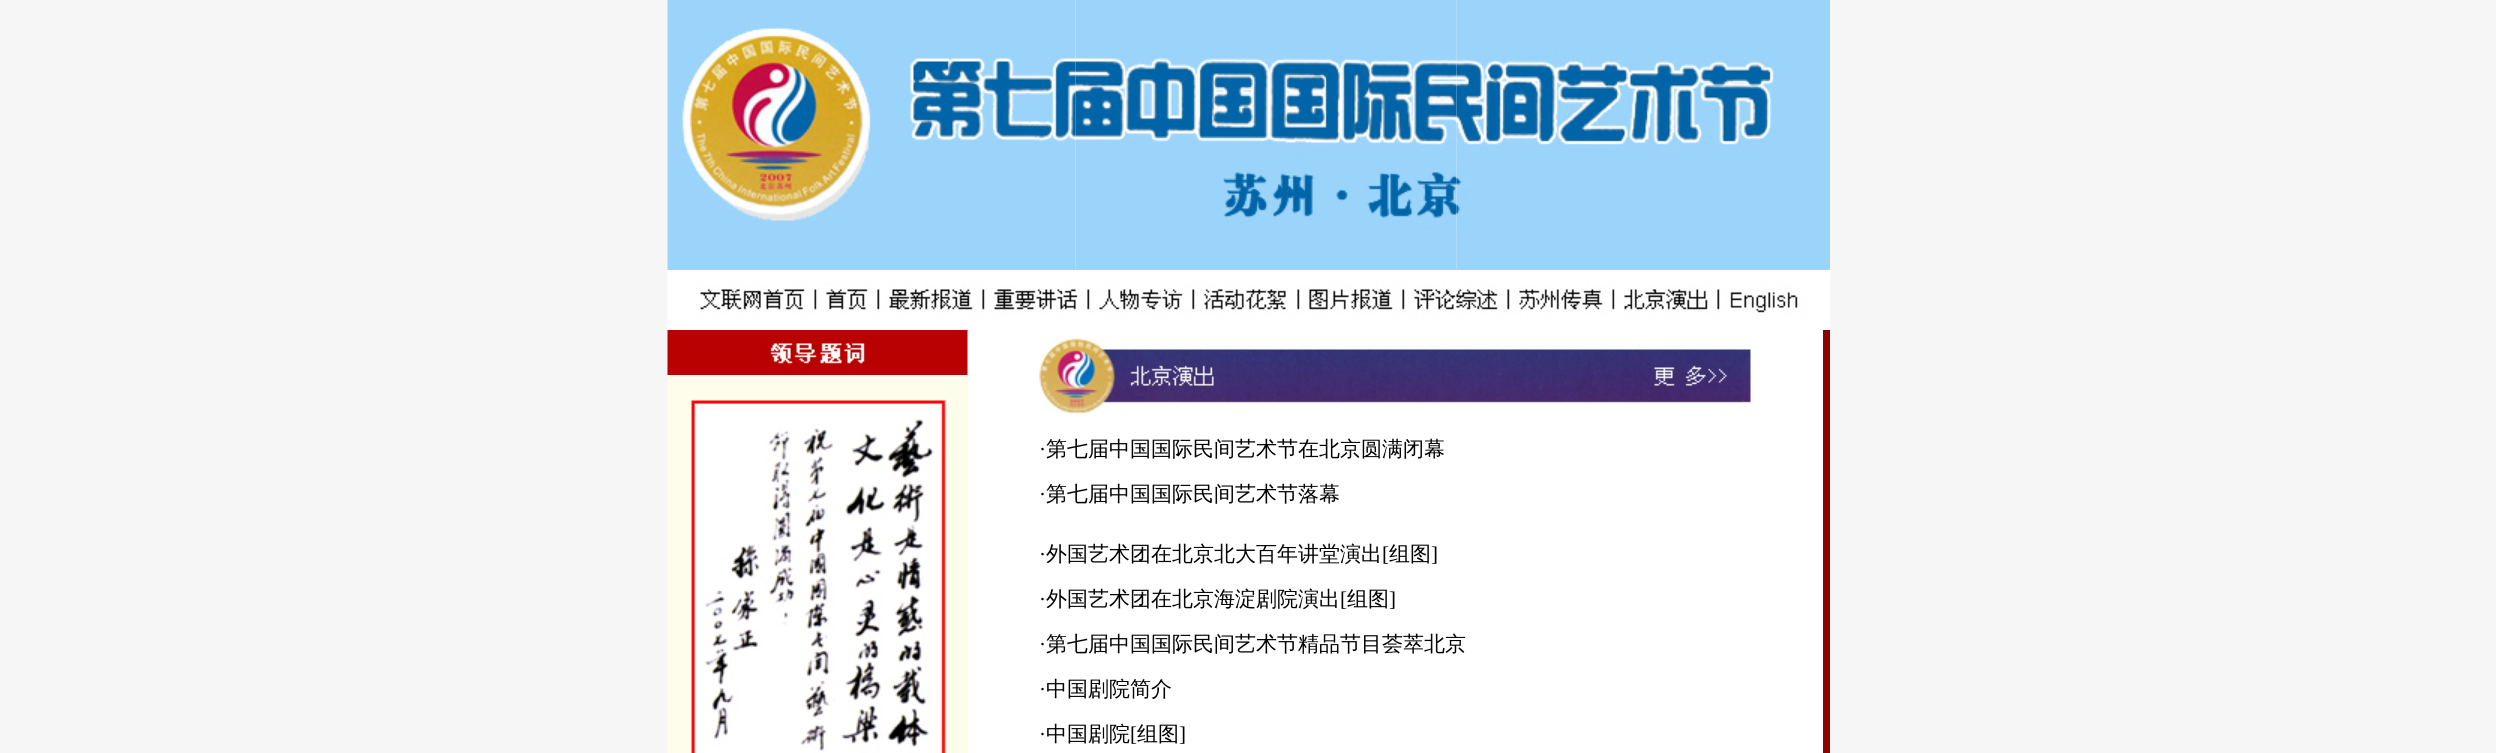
#include <cairo.h>
#include <math.h>
#include <stddef.h>


static void picture(cairo_t *cr, const char *path, double x, double y, double w, double h) {
    cairo_surface_t *image = cairo_image_surface_create_from_png(path);
    cairo_save(cr);
    cairo_set_source_surface(cr, image, x, y);
    cairo_rectangle(cr, x, y, w, h);
    cairo_fill(cr);
    cairo_restore(cr);
    cairo_surface_destroy(image);
}

int main(void) {
    cairo_surface_t *surface = cairo_image_surface_create(CAIRO_FORMAT_RGB24, 2496, 753);
    cairo_t *cr = cairo_create(surface);
    cairo_font_options_t *options = cairo_font_options_create();
    cairo_font_options_set_hint_metrics(options, CAIRO_HINT_METRICS_OFF);
    cairo_font_options_set_hint_style(options, CAIRO_HINT_STYLE_NONE);
    cairo_set_font_options(cr, options);
    cairo_set_miter_limit(cr, 4);
    cairo_set_source_rgb(cr, 0.961, 0.961, 0.961);
    cairo_paint(cr);
    picture(cr, "img1.png", 667, 0, 409, 270);
    picture(cr, "img2.png", 1075, 0, 382, 270);
    picture(cr, "img3.png", 1456, 0, 374, 270);
    picture(cr, "img4.png", 667, 270, 1163, 60);
    cairo_set_source_rgb(cr, 0.561, 0.004, 0.004);
    cairo_rectangle(cr, 1823, 330, 7, 423);
    cairo_fill(cr);
    cairo_set_source_rgb(cr, 0.992, 0.992, 0.922);
    cairo_rectangle(cr, 946, 330, 22, 423);
    cairo_fill(cr);
    picture(cr, "img5.png", 667, 330, 301, 45);
    picture(cr, "img6.png", 667, 375, 279, 378);
    cairo_set_source_rgb(cr, 1, 1, 1);
    cairo_rectangle(cr, 968, 330, 855, 423);
    cairo_fill(cr);
    picture(cr, "img7.png", 1039, 338, 712, 75);
    cairo_select_font_face(cr, "Liberation Serif", CAIRO_FONT_SLANT_NORMAL, CAIRO_FONT_WEIGHT_NORMAL);
    cairo_set_font_size(cr, 21);
    cairo_set_source_rgb(cr, 0, 0, 0);
    cairo_move_to(cr, 1039, 456);
    cairo_show_text(cr, "·");
    cairo_select_font_face(cr, "WenQuanYi Zen Hei Medium", CAIRO_FONT_SLANT_NORMAL, CAIRO_FONT_WEIGHT_NORMAL);
    cairo_move_to(cr, 1046, 456);
    cairo_show_text(cr, "第七届中国国际民间艺术节在北京圆满闭幕");
    cairo_select_font_face(cr, "Liberation Serif", CAIRO_FONT_SLANT_NORMAL, CAIRO_FONT_WEIGHT_NORMAL);
    cairo_move_to(cr, 1039, 501);
    cairo_show_text(cr, "·");
    cairo_select_font_face(cr, "WenQuanYi Zen Hei Medium", CAIRO_FONT_SLANT_NORMAL, CAIRO_FONT_WEIGHT_NORMAL);
    cairo_move_to(cr, 1046, 501);
    cairo_show_text(cr, "第七届中国国际民间艺术节落幕");
    cairo_select_font_face(cr, "Liberation Serif", CAIRO_FONT_SLANT_NORMAL, CAIRO_FONT_WEIGHT_NORMAL);
    cairo_move_to(cr, 1039, 561);
    cairo_show_text(cr, "·");
    cairo_select_font_face(cr, "WenQuanYi Zen Hei Medium", CAIRO_FONT_SLANT_NORMAL, CAIRO_FONT_WEIGHT_NORMAL);
    cairo_move_to(cr, 1046, 561);
    cairo_show_text(cr, "外国艺术团在北京北大百年讲堂演出");
    cairo_select_font_face(cr, "Liberation Serif", CAIRO_FONT_SLANT_NORMAL, CAIRO_FONT_WEIGHT_NORMAL);
    cairo_move_to(cr, 1382, 561);
    cairo_show_text(cr, "[");
    cairo_select_font_face(cr, "WenQuanYi Zen Hei Medium", CAIRO_FONT_SLANT_NORMAL, CAIRO_FONT_WEIGHT_NORMAL);
    cairo_move_to(cr, 1389, 561);
    cairo_show_text(cr, "组图");
    cairo_select_font_face(cr, "Liberation Serif", CAIRO_FONT_SLANT_NORMAL, CAIRO_FONT_WEIGHT_NORMAL);
    cairo_move_to(cr, 1431, 561);
    cairo_show_text(cr, "]");
    cairo_move_to(cr, 1039, 606);
    cairo_show_text(cr, "·");
    cairo_select_font_face(cr, "WenQuanYi Zen Hei Medium", CAIRO_FONT_SLANT_NORMAL, CAIRO_FONT_WEIGHT_NORMAL);
    cairo_move_to(cr, 1046, 606);
    cairo_show_text(cr, "外国艺术团在北京海淀剧院演出");
    cairo_select_font_face(cr, "Liberation Serif", CAIRO_FONT_SLANT_NORMAL, CAIRO_FONT_WEIGHT_NORMAL);
    cairo_move_to(cr, 1340, 606);
    cairo_show_text(cr, "[");
    cairo_select_font_face(cr, "WenQuanYi Zen Hei Medium", CAIRO_FONT_SLANT_NORMAL, CAIRO_FONT_WEIGHT_NORMAL);
    cairo_move_to(cr, 1347, 606);
    cairo_show_text(cr, "组图");
    cairo_select_font_face(cr, "Liberation Serif", CAIRO_FONT_SLANT_NORMAL, CAIRO_FONT_WEIGHT_NORMAL);
    cairo_move_to(cr, 1389, 606);
    cairo_show_text(cr, "]");
    cairo_move_to(cr, 1039, 651);
    cairo_show_text(cr, "·");
    cairo_select_font_face(cr, "WenQuanYi Zen Hei Medium", CAIRO_FONT_SLANT_NORMAL, CAIRO_FONT_WEIGHT_NORMAL);
    cairo_move_to(cr, 1046, 651);
    cairo_show_text(cr, "第七届中国国际民间艺术节精品节目荟萃北京");
    cairo_select_font_face(cr, "Liberation Serif", CAIRO_FONT_SLANT_NORMAL, CAIRO_FONT_WEIGHT_NORMAL);
    cairo_move_to(cr, 1039, 696);
    cairo_show_text(cr, "·");
    cairo_select_font_face(cr, "WenQuanYi Zen Hei Medium", CAIRO_FONT_SLANT_NORMAL, CAIRO_FONT_WEIGHT_NORMAL);
    cairo_move_to(cr, 1046, 696);
    cairo_show_text(cr, "中国剧院简介");
    cairo_select_font_face(cr, "Liberation Serif", CAIRO_FONT_SLANT_NORMAL, CAIRO_FONT_WEIGHT_NORMAL);
    cairo_move_to(cr, 1039, 741);
    cairo_show_text(cr, "·");
    cairo_select_font_face(cr, "WenQuanYi Zen Hei Medium", CAIRO_FONT_SLANT_NORMAL, CAIRO_FONT_WEIGHT_NORMAL);
    cairo_move_to(cr, 1046, 741);
    cairo_show_text(cr, "中国剧院");
    cairo_select_font_face(cr, "Liberation Serif", CAIRO_FONT_SLANT_NORMAL, CAIRO_FONT_WEIGHT_NORMAL);
    cairo_move_to(cr, 1130, 741);
    cairo_show_text(cr, "[");
    cairo_select_font_face(cr, "WenQuanYi Zen Hei Medium", CAIRO_FONT_SLANT_NORMAL, CAIRO_FONT_WEIGHT_NORMAL);
    cairo_move_to(cr, 1137, 741);
    cairo_show_text(cr, "组图");
    cairo_select_font_face(cr, "Liberation Serif", CAIRO_FONT_SLANT_NORMAL, CAIRO_FONT_WEIGHT_NORMAL);
    cairo_move_to(cr, 1179, 741);
    cairo_show_text(cr, "]");
    cairo_surface_write_to_png(surface, "page.png");
    cairo_font_options_destroy(options);
    cairo_destroy(cr);
    cairo_surface_destroy(surface);
    return 0;
}
